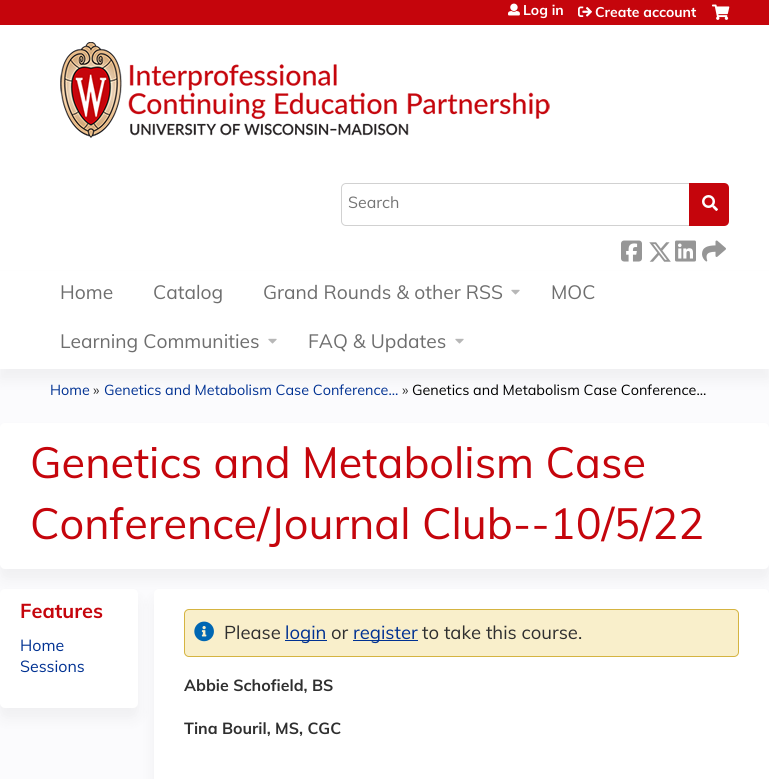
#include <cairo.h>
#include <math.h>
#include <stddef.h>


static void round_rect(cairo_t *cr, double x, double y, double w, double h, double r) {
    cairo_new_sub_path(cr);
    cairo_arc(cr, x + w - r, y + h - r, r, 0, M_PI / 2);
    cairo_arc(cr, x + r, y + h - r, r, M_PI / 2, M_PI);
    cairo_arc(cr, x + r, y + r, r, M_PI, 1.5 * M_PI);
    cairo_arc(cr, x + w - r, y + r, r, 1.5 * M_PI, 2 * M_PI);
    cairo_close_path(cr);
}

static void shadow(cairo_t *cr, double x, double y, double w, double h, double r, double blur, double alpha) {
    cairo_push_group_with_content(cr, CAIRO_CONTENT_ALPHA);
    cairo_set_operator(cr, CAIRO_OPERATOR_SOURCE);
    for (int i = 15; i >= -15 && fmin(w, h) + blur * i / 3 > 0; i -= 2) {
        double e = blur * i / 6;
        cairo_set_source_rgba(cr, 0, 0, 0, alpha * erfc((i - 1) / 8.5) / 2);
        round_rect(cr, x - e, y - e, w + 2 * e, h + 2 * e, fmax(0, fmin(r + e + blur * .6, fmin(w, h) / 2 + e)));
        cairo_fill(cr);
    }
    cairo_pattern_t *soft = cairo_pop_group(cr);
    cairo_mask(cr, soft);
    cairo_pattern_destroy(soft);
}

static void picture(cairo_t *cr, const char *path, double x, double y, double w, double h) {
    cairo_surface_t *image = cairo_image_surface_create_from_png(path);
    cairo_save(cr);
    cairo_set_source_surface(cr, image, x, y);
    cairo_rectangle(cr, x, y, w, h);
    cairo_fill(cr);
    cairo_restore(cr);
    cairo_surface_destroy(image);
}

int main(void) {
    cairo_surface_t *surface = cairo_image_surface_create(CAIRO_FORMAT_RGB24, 769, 779);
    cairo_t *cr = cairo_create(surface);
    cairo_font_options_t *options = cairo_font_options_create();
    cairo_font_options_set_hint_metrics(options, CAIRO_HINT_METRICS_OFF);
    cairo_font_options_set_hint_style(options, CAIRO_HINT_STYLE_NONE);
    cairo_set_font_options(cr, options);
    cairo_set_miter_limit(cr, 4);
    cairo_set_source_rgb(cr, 0.984, 0.984, 0.992);
    cairo_paint(cr);
    cairo_set_source_rgb(cr, 1, 1, 1);
    cairo_rectangle(cr, 0, 25, 769, 246);
    cairo_fill(cr);
    cairo_set_source_rgb(cr, 0.773, 0.02, 0.047);
    cairo_rectangle(cr, 0, 0, 769, 25);
    cairo_fill(cr);
    picture(cr, "img1.png", 508, 3, 12, 13);
    cairo_select_font_face(cr, "Muli", CAIRO_FONT_SLANT_NORMAL, CAIRO_FONT_WEIGHT_BOLD);
    cairo_set_font_size(cr, 14);
    cairo_set_source_rgb(cr, 1, 1, 1);
    cairo_move_to(cr, 523, 15);
    cairo_show_text(cr, "Log in");
    picture(cr, "img2.png", 578, 6, 14, 11);
    cairo_move_to(cr, 595, 17);
    cairo_show_text(cr, "Create account");
    picture(cr, "img3.png", 712, 4, 18, 16);
    cairo_new_path(cr);
    cairo_move_to(cr, 346, 183.5);
    cairo_line_to(cr, 689.5, 183.5);
    cairo_line_to(cr, 689.5, 225.5);
    cairo_line_to(cr, 346, 225.5);
    cairo_curve_to(cr, 343.5, 225.5, 341.5, 223.5, 341.5, 221);
    cairo_line_to(cr, 341.5, 188);
    cairo_curve_to(cr, 341.5, 185.5, 343.5, 183.5, 346, 183.5);
    cairo_close_path(cr);
    cairo_set_source_rgb(cr, 0.82, 0.82, 0.82);
    cairo_set_line_width(cr, 1);
    cairo_stroke(cr);
    cairo_set_source_rgb(cr, 0.773, 0.02, 0.047);
    cairo_new_path(cr);
    cairo_move_to(cr, 689, 183);
    cairo_line_to(cr, 724, 183);
    cairo_curve_to(cr, 727, 183, 729, 185, 729, 188);
    cairo_line_to(cr, 729, 221);
    cairo_curve_to(cr, 729, 224, 727, 226, 724, 226);
    cairo_line_to(cr, 689, 226);
    cairo_close_path(cr);
    cairo_fill(cr);
    cairo_select_font_face(cr, "Muli", CAIRO_FONT_SLANT_NORMAL, CAIRO_FONT_WEIGHT_NORMAL);
    cairo_set_font_size(cr, 16);
    cairo_set_source_rgb(cr, 0.459, 0.459, 0.459);
    cairo_move_to(cr, 348, 208);
    cairo_show_text(cr, "Search");
    picture(cr, "img4.png", 702, 195, 16, 16);
    picture(cr, "img5.png", 621, 240, 21, 22);
    picture(cr, "img6.png", 649, 242, 22, 20);
    picture(cr, "img7.png", 675, 240, 21, 22);
    picture(cr, "img8.png", 702, 240, 24, 22);
    picture(cr, "img9.png", 60, 42, 490, 96);
    cairo_set_source_rgb(cr, 0, 0, 0);
    shadow(cr, 0, 281, 769, 98, 0, 7.5, 0.05);
    cairo_set_source_rgb(cr, 1, 1, 1);
    cairo_rectangle(cr, 0, 271, 769, 98);
    cairo_fill(cr);
    cairo_set_font_size(cr, 19.25);
    cairo_set_source_rgb(cr, 0.431, 0.431, 0.431);
    cairo_move_to(cr, 60, 299);
    cairo_show_text(cr, "Home");
    cairo_move_to(cr, 153, 299);
    cairo_show_text(cr, "Catalog");
    cairo_move_to(cr, 263, 299);
    cairo_show_text(cr, "Grand Rounds & other RSS");
    picture(cr, "img10.png", 511, 289, 9, 6);
    cairo_move_to(cr, 551, 299);
    cairo_show_text(cr, "MOC");
    cairo_move_to(cr, 60, 348);
    cairo_show_text(cr, "Learning Communities");
    picture(cr, "img10.png", 268, 338, 9, 6);
    cairo_move_to(cr, 308, 348);
    cairo_show_text(cr, "FAQ & Updates");
    picture(cr, "img10.png", 455, 338, 9, 6);
    cairo_set_font_size(cr, 14.4);
    cairo_set_source_rgb(cr, 0, 0.192, 0.573);
    cairo_move_to(cr, 50, 395);
    cairo_show_text(cr, "Home");
    cairo_set_source_rgb(cr, 0.184, 0.184, 0.184);
    cairo_move_to(cr, 93, 395);
    cairo_show_text(cr, "»");
    cairo_set_source_rgb(cr, 0, 0.192, 0.573);
    cairo_move_to(cr, 104, 395);
    cairo_show_text(cr, "Genetics and Metabolism Case Conference...");
    cairo_set_source_rgb(cr, 0.184, 0.184, 0.184);
    cairo_move_to(cr, 402, 395);
    cairo_show_text(cr, "»");
    cairo_set_source_rgb(cr, 0, 0, 0);
    cairo_move_to(cr, 412, 395);
    cairo_show_text(cr, "Genetics and Metabolism Case Conference...");
    cairo_set_source_rgb(cr, 0, 0, 0);
    shadow(cr, 0, 433, 769, 146, 5, 7.5, 0.05);
    cairo_set_source_rgb(cr, 1, 1, 1);
    round_rect(cr, 0, 423, 769, 146, 5);
    cairo_fill(cr);
    cairo_set_font_size(cr, 43.25);
    cairo_set_source_rgb(cr, 0.773, 0.02, 0.047);
    cairo_move_to(cr, 30, 478);
    cairo_show_text(cr, "Genetics and Metabolism Case");
    cairo_move_to(cr, 30, 539);
    cairo_show_text(cr, "Conference/Journal Club--10/5/22");
    cairo_set_source_rgb(cr, 0, 0, 0);
    shadow(cr, 154, 599, 615, 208, 5, 7.5, 0.05);
    cairo_set_source_rgb(cr, 1, 1, 1);
    round_rect(cr, 154, 589, 615, 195, 5);
    cairo_fill(cr);
    cairo_set_source_rgb(cr, 0, 0, 0);
    shadow(cr, 0, 599, 138, 119, 5, 7.5, 0.05);
    cairo_set_source_rgb(cr, 1, 1, 1);
    round_rect(cr, 0, 589, 138, 119, 5);
    cairo_fill(cr);
    cairo_select_font_face(cr, "Muli", CAIRO_FONT_SLANT_NORMAL, CAIRO_FONT_WEIGHT_BOLD);
    cairo_set_font_size(cr, 20);
    cairo_set_source_rgb(cr, 0.773, 0.02, 0.047);
    cairo_move_to(cr, 20, 618);
    cairo_show_text(cr, "Features");
    cairo_select_font_face(cr, "Muli", CAIRO_FONT_SLANT_NORMAL, CAIRO_FONT_WEIGHT_NORMAL);
    cairo_set_font_size(cr, 16);
    cairo_set_source_rgb(cr, 0, 0.192, 0.573);
    cairo_move_to(cr, 20, 651);
    cairo_show_text(cr, "Home");
    cairo_move_to(cr, 20, 672);
    cairo_show_text(cr, "Sessions");
    cairo_set_source_rgb(cr, 0.976, 0.937, 0.796);
    round_rect(cr, 184.5, 609.5, 554, 47, 4.5);
    cairo_fill_preserve(cr);
    cairo_set_source_rgb(cr, 0.835, 0.706, 0.255);
    cairo_stroke(cr);
    picture(cr, "img11.png", 194, 621, 20, 21);
    cairo_set_font_size(cr, 18.5);
    cairo_set_source_rgb(cr, 0.184, 0.184, 0.184);
    cairo_move_to(cr, 224, 639);
    cairo_show_text(cr, "Please");
    cairo_set_source_rgb(cr, 0, 0.192, 0.573);
    cairo_rectangle(cr, 285, 640, 42, 1);
    cairo_fill(cr);
    cairo_move_to(cr, 285, 639);
    cairo_show_text(cr, "login");
    cairo_set_source_rgb(cr, 0.184, 0.184, 0.184);
    cairo_move_to(cr, 331, 639);
    cairo_show_text(cr, "or");
    cairo_set_source_rgb(cr, 0, 0.192, 0.573);
    cairo_rectangle(cr, 353, 640, 65, 1);
    cairo_fill(cr);
    cairo_move_to(cr, 353, 639);
    cairo_show_text(cr, "register");
    cairo_set_source_rgb(cr, 0.184, 0.184, 0.184);
    cairo_move_to(cr, 422, 639);
    cairo_show_text(cr, "to take this course.");
    cairo_select_font_face(cr, "Muli", CAIRO_FONT_SLANT_NORMAL, CAIRO_FONT_WEIGHT_BOLD);
    cairo_set_font_size(cr, 16);
    cairo_move_to(cr, 184, 691);
    cairo_show_text(cr, "Abbie Schofield, BS");
    cairo_move_to(cr, 184, 734);
    cairo_show_text(cr, "Tina Bouril, MS, CGC");
    cairo_surface_write_to_png(surface, "page.png");
    cairo_font_options_destroy(options);
    cairo_destroy(cr);
    cairo_surface_destroy(surface);
    return 0;
}
